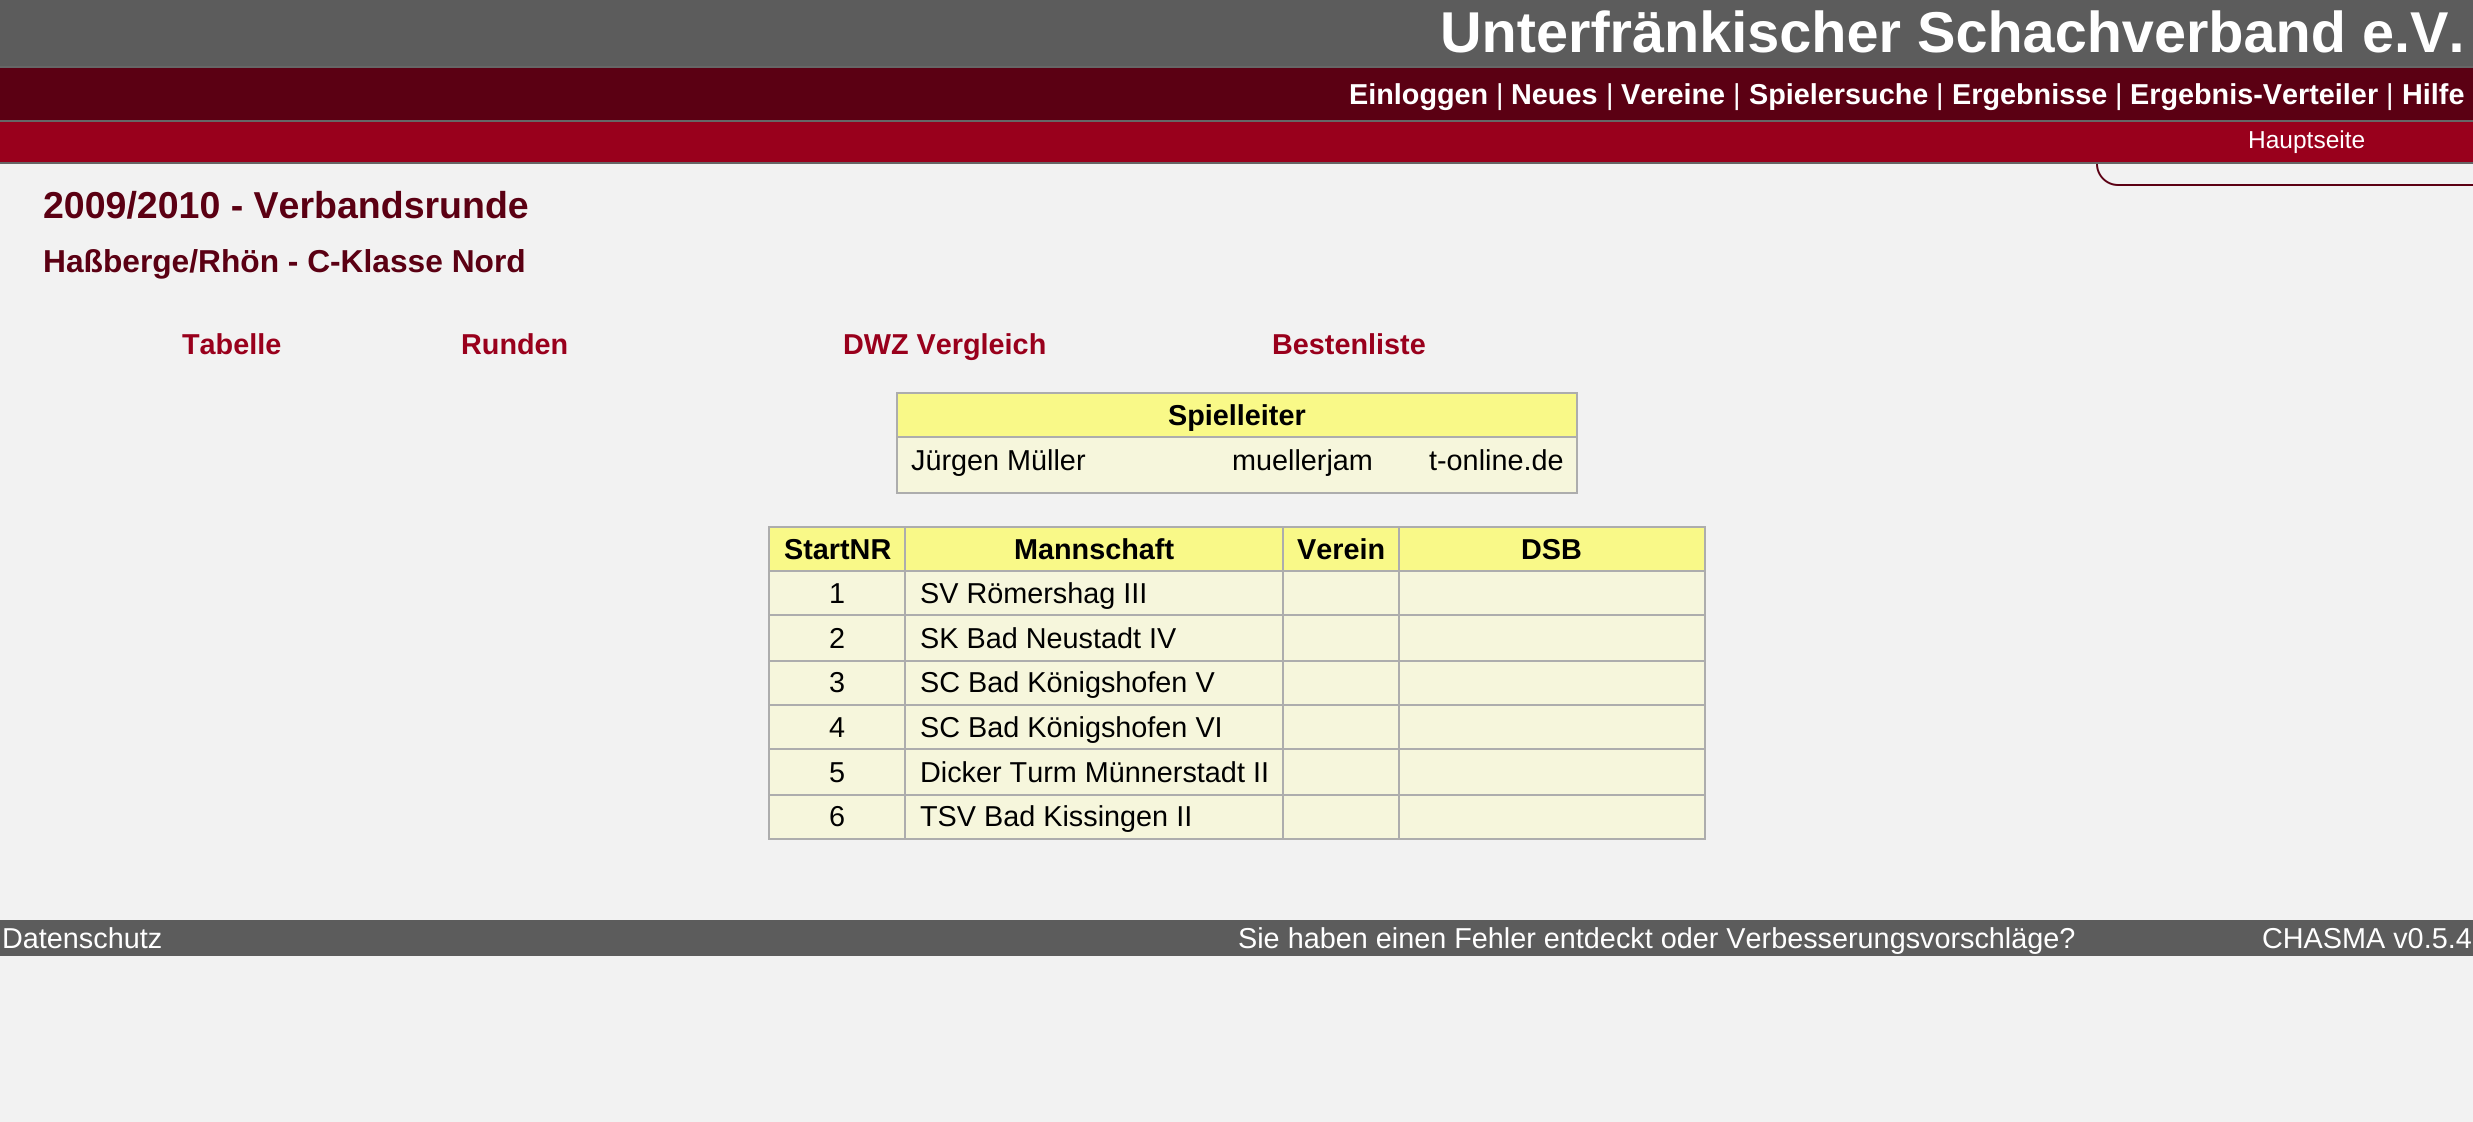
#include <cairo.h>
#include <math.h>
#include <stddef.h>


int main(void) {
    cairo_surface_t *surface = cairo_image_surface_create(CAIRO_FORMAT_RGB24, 2473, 1122);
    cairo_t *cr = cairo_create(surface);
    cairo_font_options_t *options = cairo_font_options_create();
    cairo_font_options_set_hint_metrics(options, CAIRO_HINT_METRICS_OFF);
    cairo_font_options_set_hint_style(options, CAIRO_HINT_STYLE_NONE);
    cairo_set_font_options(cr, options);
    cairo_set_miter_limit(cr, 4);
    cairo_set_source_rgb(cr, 0.949, 0.949, 0.949);
    cairo_paint(cr);
    cairo_set_source_rgb(cr, 0.361, 0.361, 0.361);
    cairo_rectangle(cr, 0, 0, 2473, 66);
    cairo_fill(cr);
    cairo_select_font_face(cr, "Liberation Sans", CAIRO_FONT_SLANT_NORMAL, CAIRO_FONT_WEIGHT_BOLD);
    cairo_set_font_size(cr, 57.6);
    cairo_set_source_rgb(cr, 1, 1, 1);
    cairo_move_to(cr, 1440, 52);
    cairo_show_text(cr, "Unterfränkischer Schachverband e.V.");
    cairo_set_source_rgb(cr, 0.357, 0, 0.075);
    cairo_rectangle(cr, 0, 68, 2473, 52);
    cairo_fill(cr);
    cairo_set_source_rgb(cr, 0.4, 0.4, 0.4);
    cairo_rectangle(cr, 0, 66, 2473, 2);
    cairo_fill(cr);
    cairo_rectangle(cr, 0, 120, 2473, 2);
    cairo_fill(cr);
    cairo_set_font_size(cr, 28.8);
    cairo_set_source_rgb(cr, 1, 1, 1);
    cairo_move_to(cr, 1349, 104);
    cairo_show_text(cr, "Einloggen");
    cairo_select_font_face(cr, "Liberation Sans", CAIRO_FONT_SLANT_NORMAL, CAIRO_FONT_WEIGHT_NORMAL);
    cairo_move_to(cr, 1496, 104);
    cairo_show_text(cr, "|");
    cairo_select_font_face(cr, "Liberation Sans", CAIRO_FONT_SLANT_NORMAL, CAIRO_FONT_WEIGHT_BOLD);
    cairo_move_to(cr, 1511, 104);
    cairo_show_text(cr, "Neues");
    cairo_select_font_face(cr, "Liberation Sans", CAIRO_FONT_SLANT_NORMAL, CAIRO_FONT_WEIGHT_NORMAL);
    cairo_move_to(cr, 1606, 104);
    cairo_show_text(cr, "|");
    cairo_select_font_face(cr, "Liberation Sans", CAIRO_FONT_SLANT_NORMAL, CAIRO_FONT_WEIGHT_BOLD);
    cairo_move_to(cr, 1621, 104);
    cairo_show_text(cr, "Vereine");
    cairo_select_font_face(cr, "Liberation Sans", CAIRO_FONT_SLANT_NORMAL, CAIRO_FONT_WEIGHT_NORMAL);
    cairo_move_to(cr, 1733, 104);
    cairo_show_text(cr, "|");
    cairo_select_font_face(cr, "Liberation Sans", CAIRO_FONT_SLANT_NORMAL, CAIRO_FONT_WEIGHT_BOLD);
    cairo_move_to(cr, 1749, 104);
    cairo_show_text(cr, "Spielersuche");
    cairo_select_font_face(cr, "Liberation Sans", CAIRO_FONT_SLANT_NORMAL, CAIRO_FONT_WEIGHT_NORMAL);
    cairo_move_to(cr, 1936, 104);
    cairo_show_text(cr, "|");
    cairo_select_font_face(cr, "Liberation Sans", CAIRO_FONT_SLANT_NORMAL, CAIRO_FONT_WEIGHT_BOLD);
    cairo_move_to(cr, 1952, 104);
    cairo_show_text(cr, "Ergebnisse");
    cairo_select_font_face(cr, "Liberation Sans", CAIRO_FONT_SLANT_NORMAL, CAIRO_FONT_WEIGHT_NORMAL);
    cairo_move_to(cr, 2115, 104);
    cairo_show_text(cr, "|");
    cairo_select_font_face(cr, "Liberation Sans", CAIRO_FONT_SLANT_NORMAL, CAIRO_FONT_WEIGHT_BOLD);
    cairo_move_to(cr, 2130, 104);
    cairo_show_text(cr, "Ergebnis-Verteiler");
    cairo_select_font_face(cr, "Liberation Sans", CAIRO_FONT_SLANT_NORMAL, CAIRO_FONT_WEIGHT_NORMAL);
    cairo_move_to(cr, 2386, 104);
    cairo_show_text(cr, "|");
    cairo_select_font_face(cr, "Liberation Sans", CAIRO_FONT_SLANT_NORMAL, CAIRO_FONT_WEIGHT_BOLD);
    cairo_move_to(cr, 2402, 104);
    cairo_show_text(cr, "Hilfe");
    cairo_set_source_rgb(cr, 0.6, 0, 0.11);
    cairo_rectangle(cr, 0, 122, 2473, 40);
    cairo_fill(cr);
    cairo_set_source_rgb(cr, 0.4, 0.4, 0.4);
    cairo_rectangle(cr, 0, 162, 2473, 2);
    cairo_fill(cr);
    cairo_select_font_face(cr, "Liberation Sans", CAIRO_FONT_SLANT_NORMAL, CAIRO_FONT_WEIGHT_NORMAL);
    cairo_set_font_size(cr, 24.5);
    cairo_set_source_rgb(cr, 1, 1, 1);
    cairo_move_to(cr, 2248, 148);
    cairo_show_text(cr, "Hauptseite");
    cairo_set_source_rgb(cr, 0.357, 0, 0.075);
    cairo_set_fill_rule(cr, CAIRO_FILL_RULE_EVEN_ODD);
    cairo_new_path(cr);
    cairo_move_to(cr, 2096, 164);
    cairo_line_to(cr, 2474, 164);
    cairo_line_to(cr, 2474, 186);
    cairo_line_to(cr, 2118, 186);
    cairo_curve_to(cr, 2106, 186, 2096, 176, 2096, 164);
    cairo_close_path(cr);
    cairo_move_to(cr, 2098, 164);
    cairo_line_to(cr, 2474, 164);
    cairo_line_to(cr, 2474, 184);
    cairo_line_to(cr, 2118, 184);
    cairo_curve_to(cr, 2107, 184, 2098, 175, 2098, 164);
    cairo_close_path(cr);
    cairo_fill(cr);
    cairo_select_font_face(cr, "Liberation Sans", CAIRO_FONT_SLANT_NORMAL, CAIRO_FONT_WEIGHT_BOLD);
    cairo_set_font_size(cr, 37.5);
    cairo_move_to(cr, 43, 218);
    cairo_show_text(cr, "2009/2010 - Verbandsrunde");
    cairo_set_font_size(cr, 31.7);
    cairo_move_to(cr, 43, 272);
    cairo_show_text(cr, "Haßberge/Rhön - C-Klasse Nord");
    cairo_set_font_size(cr, 28.8);
    cairo_set_source_rgb(cr, 0.6, 0, 0.11);
    cairo_move_to(cr, 182, 354);
    cairo_show_text(cr, "Tabelle");
    cairo_move_to(cr, 461, 354);
    cairo_show_text(cr, "Runden");
    cairo_move_to(cr, 843, 354);
    cairo_show_text(cr, "DWZ Vergleich");
    cairo_move_to(cr, 1272, 354);
    cairo_show_text(cr, "Bestenliste");
    cairo_set_source_rgb(cr, 0.961, 0.961, 0.863);
    cairo_rectangle(cr, 898, 438, 678, 54);
    cairo_fill(cr);
    cairo_set_source_rgb(cr, 0.973, 0.973, 0.533);
    cairo_rectangle(cr, 898, 394, 678, 42);
    cairo_fill(cr);
    cairo_set_source_rgb(cr, 0.678, 0.678, 0.678);
    cairo_rectangle(cr, 896, 392, 682, 2);
    cairo_fill(cr);
    cairo_rectangle(cr, 896, 436, 682, 2);
    cairo_fill(cr);
    cairo_rectangle(cr, 1576, 436, 2, 58);
    cairo_fill(cr);
    cairo_rectangle(cr, 1576, 392, 2, 46);
    cairo_fill(cr);
    cairo_rectangle(cr, 896, 492, 682, 2);
    cairo_fill(cr);
    cairo_rectangle(cr, 896, 436, 2, 58);
    cairo_fill(cr);
    cairo_rectangle(cr, 896, 392, 2, 46);
    cairo_fill(cr);
    cairo_set_source_rgb(cr, 0, 0, 0);
    cairo_move_to(cr, 1168, 425);
    cairo_show_text(cr, "Spielleiter");
    cairo_select_font_face(cr, "Liberation Sans", CAIRO_FONT_SLANT_NORMAL, CAIRO_FONT_WEIGHT_NORMAL);
    cairo_move_to(cr, 911, 470);
    cairo_show_text(cr, "Jürgen Müller");
    cairo_move_to(cr, 1232, 470);
    cairo_show_text(cr, "muellerjam");
    cairo_move_to(cr, 1429, 470);
    cairo_show_text(cr, "t-online.de");
    cairo_set_source_rgb(cr, 0.961, 0.961, 0.863);
    cairo_rectangle(cr, 770, 572, 934, 266);
    cairo_fill(cr);
    cairo_set_source_rgb(cr, 0.973, 0.973, 0.533);
    cairo_rectangle(cr, 770, 528, 134, 42);
    cairo_fill(cr);
    cairo_set_source_rgb(cr, 0.678, 0.678, 0.678);
    cairo_rectangle(cr, 1398, 526, 308, 2);
    cairo_fill(cr);
    cairo_rectangle(cr, 1398, 570, 308, 2);
    cairo_fill(cr);
    cairo_rectangle(cr, 1398, 614, 308, 2);
    cairo_fill(cr);
    cairo_rectangle(cr, 1398, 660, 308, 2);
    cairo_fill(cr);
    cairo_rectangle(cr, 1398, 704, 308, 2);
    cairo_fill(cr);
    cairo_rectangle(cr, 1398, 748, 308, 2);
    cairo_fill(cr);
    cairo_rectangle(cr, 1398, 794, 308, 2);
    cairo_fill(cr);
    cairo_rectangle(cr, 1704, 794, 2, 46);
    cairo_fill(cr);
    cairo_rectangle(cr, 1398, 838, 308, 2);
    cairo_fill(cr);
    cairo_rectangle(cr, 1398, 794, 2, 46);
    cairo_fill(cr);
    cairo_rectangle(cr, 1282, 794, 118, 2);
    cairo_fill(cr);
    cairo_rectangle(cr, 1398, 748, 2, 48);
    cairo_fill(cr);
    cairo_rectangle(cr, 1282, 748, 118, 2);
    cairo_fill(cr);
    cairo_rectangle(cr, 1398, 704, 2, 46);
    cairo_fill(cr);
    cairo_rectangle(cr, 1282, 704, 118, 2);
    cairo_fill(cr);
    cairo_rectangle(cr, 1398, 660, 2, 46);
    cairo_fill(cr);
    cairo_rectangle(cr, 1282, 660, 118, 2);
    cairo_fill(cr);
    cairo_rectangle(cr, 1398, 614, 2, 48);
    cairo_fill(cr);
    cairo_rectangle(cr, 1282, 614, 118, 2);
    cairo_fill(cr);
    cairo_rectangle(cr, 1398, 570, 2, 46);
    cairo_fill(cr);
    cairo_rectangle(cr, 1282, 570, 118, 2);
    cairo_fill(cr);
    cairo_rectangle(cr, 1398, 526, 2, 46);
    cairo_fill(cr);
    cairo_rectangle(cr, 1282, 526, 118, 2);
    cairo_fill(cr);
    cairo_rectangle(cr, 1282, 838, 118, 2);
    cairo_fill(cr);
    cairo_rectangle(cr, 1282, 794, 2, 46);
    cairo_fill(cr);
    cairo_rectangle(cr, 904, 794, 380, 2);
    cairo_fill(cr);
    cairo_rectangle(cr, 1282, 748, 2, 48);
    cairo_fill(cr);
    cairo_rectangle(cr, 904, 748, 380, 2);
    cairo_fill(cr);
    cairo_rectangle(cr, 1282, 704, 2, 46);
    cairo_fill(cr);
    cairo_rectangle(cr, 904, 704, 380, 2);
    cairo_fill(cr);
    cairo_rectangle(cr, 1282, 660, 2, 46);
    cairo_fill(cr);
    cairo_rectangle(cr, 904, 660, 380, 2);
    cairo_fill(cr);
    cairo_rectangle(cr, 1282, 614, 2, 48);
    cairo_fill(cr);
    cairo_rectangle(cr, 904, 614, 380, 2);
    cairo_fill(cr);
    cairo_rectangle(cr, 1282, 570, 2, 46);
    cairo_fill(cr);
    cairo_rectangle(cr, 904, 570, 380, 2);
    cairo_fill(cr);
    cairo_rectangle(cr, 1282, 526, 2, 46);
    cairo_fill(cr);
    cairo_rectangle(cr, 904, 526, 380, 2);
    cairo_fill(cr);
    cairo_rectangle(cr, 904, 838, 380, 2);
    cairo_fill(cr);
    cairo_rectangle(cr, 904, 794, 2, 46);
    cairo_fill(cr);
    cairo_rectangle(cr, 768, 794, 138, 2);
    cairo_fill(cr);
    cairo_rectangle(cr, 904, 748, 2, 48);
    cairo_fill(cr);
    cairo_rectangle(cr, 768, 748, 138, 2);
    cairo_fill(cr);
    cairo_rectangle(cr, 904, 704, 2, 46);
    cairo_fill(cr);
    cairo_rectangle(cr, 768, 704, 138, 2);
    cairo_fill(cr);
    cairo_rectangle(cr, 904, 660, 2, 46);
    cairo_fill(cr);
    cairo_rectangle(cr, 768, 660, 138, 2);
    cairo_fill(cr);
    cairo_rectangle(cr, 904, 614, 2, 48);
    cairo_fill(cr);
    cairo_rectangle(cr, 768, 614, 138, 2);
    cairo_fill(cr);
    cairo_rectangle(cr, 904, 570, 2, 46);
    cairo_fill(cr);
    cairo_rectangle(cr, 768, 570, 138, 2);
    cairo_fill(cr);
    cairo_rectangle(cr, 904, 526, 2, 46);
    cairo_fill(cr);
    cairo_rectangle(cr, 768, 526, 138, 2);
    cairo_fill(cr);
    cairo_rectangle(cr, 768, 838, 138, 2);
    cairo_fill(cr);
    cairo_rectangle(cr, 768, 794, 2, 46);
    cairo_fill(cr);
    cairo_rectangle(cr, 768, 748, 2, 48);
    cairo_fill(cr);
    cairo_rectangle(cr, 768, 704, 2, 46);
    cairo_fill(cr);
    cairo_rectangle(cr, 768, 660, 2, 46);
    cairo_fill(cr);
    cairo_rectangle(cr, 768, 614, 2, 48);
    cairo_fill(cr);
    cairo_rectangle(cr, 768, 570, 2, 46);
    cairo_fill(cr);
    cairo_rectangle(cr, 768, 526, 2, 46);
    cairo_fill(cr);
    cairo_select_font_face(cr, "Liberation Sans", CAIRO_FONT_SLANT_NORMAL, CAIRO_FONT_WEIGHT_BOLD);
    cairo_set_source_rgb(cr, 0, 0, 0);
    cairo_move_to(cr, 784, 559);
    cairo_show_text(cr, "StartNR");
    cairo_set_source_rgb(cr, 0.973, 0.973, 0.533);
    cairo_rectangle(cr, 906, 528, 376, 42);
    cairo_fill(cr);
    cairo_set_source_rgb(cr, 0, 0, 0);
    cairo_move_to(cr, 1014, 559);
    cairo_show_text(cr, "Mannschaft");
    cairo_set_source_rgb(cr, 0.973, 0.973, 0.533);
    cairo_rectangle(cr, 1284, 528, 114, 42);
    cairo_fill(cr);
    cairo_set_source_rgb(cr, 0, 0, 0);
    cairo_move_to(cr, 1297, 559);
    cairo_show_text(cr, "Verein");
    cairo_set_source_rgb(cr, 0.973, 0.973, 0.533);
    cairo_rectangle(cr, 1400, 528, 304, 42);
    cairo_fill(cr);
    cairo_set_source_rgb(cr, 0.678, 0.678, 0.678);
    cairo_rectangle(cr, 1704, 748, 2, 48);
    cairo_fill(cr);
    cairo_rectangle(cr, 1704, 704, 2, 46);
    cairo_fill(cr);
    cairo_rectangle(cr, 1704, 660, 2, 46);
    cairo_fill(cr);
    cairo_rectangle(cr, 1704, 614, 2, 48);
    cairo_fill(cr);
    cairo_rectangle(cr, 1704, 570, 2, 46);
    cairo_fill(cr);
    cairo_rectangle(cr, 1704, 526, 2, 46);
    cairo_fill(cr);
    cairo_set_source_rgb(cr, 0, 0, 0);
    cairo_move_to(cr, 1521, 559);
    cairo_show_text(cr, "DSB");
    cairo_select_font_face(cr, "Liberation Sans", CAIRO_FONT_SLANT_NORMAL, CAIRO_FONT_WEIGHT_NORMAL);
    cairo_move_to(cr, 829, 603);
    cairo_show_text(cr, "1");
    cairo_move_to(cr, 920, 603);
    cairo_show_text(cr, "SV Römershag III");
    cairo_move_to(cr, 829, 648);
    cairo_show_text(cr, "2");
    cairo_move_to(cr, 920, 648);
    cairo_show_text(cr, "SK Bad Neustadt IV");
    cairo_move_to(cr, 829, 692);
    cairo_show_text(cr, "3");
    cairo_move_to(cr, 920, 692);
    cairo_show_text(cr, "SC Bad Königshofen V");
    cairo_move_to(cr, 829, 737);
    cairo_show_text(cr, "4");
    cairo_move_to(cr, 920, 737);
    cairo_show_text(cr, "SC Bad Königshofen VI");
    cairo_move_to(cr, 829, 782);
    cairo_show_text(cr, "5");
    cairo_move_to(cr, 920, 782);
    cairo_show_text(cr, "Dicker Turm Münnerstadt II");
    cairo_move_to(cr, 829, 826);
    cairo_show_text(cr, "6");
    cairo_move_to(cr, 920, 826);
    cairo_show_text(cr, "TSV Bad Kissingen II");
    cairo_set_source_rgb(cr, 0.361, 0.361, 0.361);
    cairo_rectangle(cr, 0, 920, 2473, 36);
    cairo_fill(cr);
    cairo_set_source_rgb(cr, 1, 1, 1);
    cairo_move_to(cr, 2, 948);
    cairo_show_text(cr, "Datenschutz");
    cairo_move_to(cr, 1238, 948);
    cairo_show_text(cr, "Sie haben einen Fehler entdeckt oder Verbesserungsvorschläge?");
    cairo_move_to(cr, 2262, 948);
    cairo_show_text(cr, "CHASMA v0.5.4");
    cairo_surface_write_to_png(surface, "page.png");
    cairo_font_options_destroy(options);
    cairo_destroy(cr);
    cairo_surface_destroy(surface);
    return 0;
}
